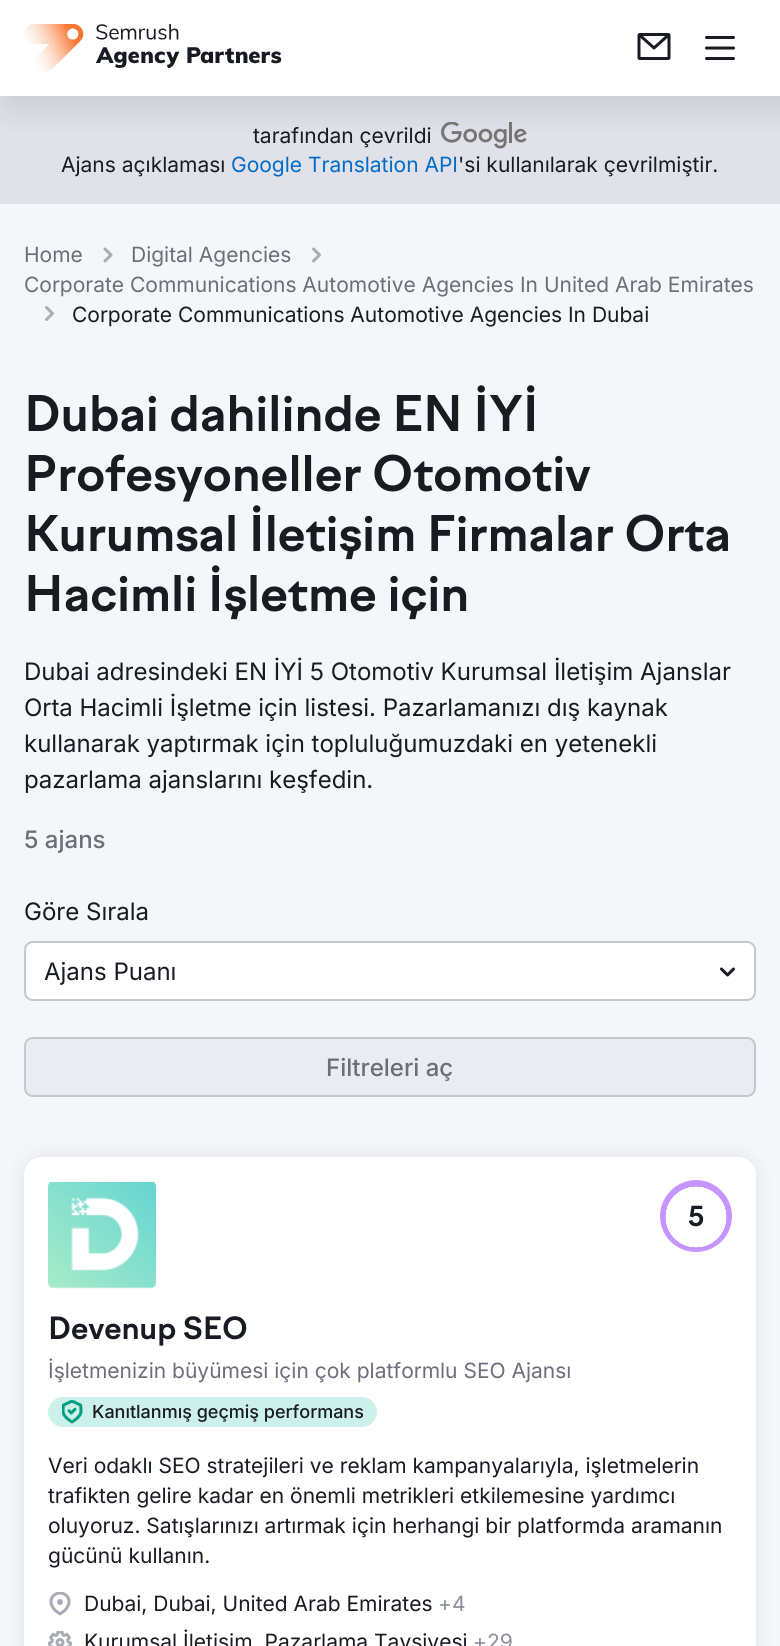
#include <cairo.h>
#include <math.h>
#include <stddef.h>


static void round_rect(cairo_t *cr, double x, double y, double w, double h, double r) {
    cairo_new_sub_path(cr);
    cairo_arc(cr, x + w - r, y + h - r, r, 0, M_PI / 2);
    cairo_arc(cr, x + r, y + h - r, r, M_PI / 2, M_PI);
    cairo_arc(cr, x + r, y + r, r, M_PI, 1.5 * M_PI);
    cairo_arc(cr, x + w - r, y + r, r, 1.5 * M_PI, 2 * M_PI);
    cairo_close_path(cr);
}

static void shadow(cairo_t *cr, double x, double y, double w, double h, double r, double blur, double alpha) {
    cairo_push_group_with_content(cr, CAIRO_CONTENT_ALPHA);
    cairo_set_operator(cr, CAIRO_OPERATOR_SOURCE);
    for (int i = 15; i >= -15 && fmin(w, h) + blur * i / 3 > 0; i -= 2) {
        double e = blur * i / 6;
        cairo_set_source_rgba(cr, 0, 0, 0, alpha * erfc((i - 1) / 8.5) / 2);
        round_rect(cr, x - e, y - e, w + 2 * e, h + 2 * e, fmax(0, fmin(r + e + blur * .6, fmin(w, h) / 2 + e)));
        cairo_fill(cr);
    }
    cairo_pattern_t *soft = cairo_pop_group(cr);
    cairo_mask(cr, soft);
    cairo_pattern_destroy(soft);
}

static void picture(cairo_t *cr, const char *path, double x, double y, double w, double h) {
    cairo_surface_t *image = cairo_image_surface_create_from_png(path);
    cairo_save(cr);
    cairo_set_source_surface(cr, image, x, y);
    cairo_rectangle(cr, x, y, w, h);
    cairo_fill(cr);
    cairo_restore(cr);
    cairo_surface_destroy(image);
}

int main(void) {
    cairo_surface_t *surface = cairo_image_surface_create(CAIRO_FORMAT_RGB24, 780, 1646);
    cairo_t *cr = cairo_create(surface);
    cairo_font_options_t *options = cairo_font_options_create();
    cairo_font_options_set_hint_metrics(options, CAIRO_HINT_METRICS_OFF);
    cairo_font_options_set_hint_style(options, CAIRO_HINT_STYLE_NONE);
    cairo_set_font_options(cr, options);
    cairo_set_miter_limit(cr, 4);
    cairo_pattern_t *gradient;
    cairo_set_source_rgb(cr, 1, 1, 1);
    cairo_paint(cr);
    cairo_set_source_rgb(cr, 0.878, 0.882, 0.914);
    cairo_rectangle(cr, 0, 96, 780, 108);
    cairo_fill(cr);
    picture(cr, "img4.png", 441, 122, 86, 27);
    cairo_save(cr);
    cairo_rectangle(cr, 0, 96, 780, 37);
    cairo_clip(cr);
    cairo_set_source_rgb(cr, 0.537, 0.553, 0.604);
    shadow(cr, 8, 8, 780, 96, 0, 19, 0.3);
    cairo_restore(cr);
    picture(cr, "img1.png", 24, 24, 258, 48);
    picture(cr, "img2.png", 637, 33, 34, 27);
    picture(cr, "img3.png", 705, 36, 30, 24);
    cairo_select_font_face(cr, "Inter", CAIRO_FONT_SLANT_NORMAL, CAIRO_FONT_WEIGHT_NORMAL);
    cairo_set_font_size(cr, 21);
    cairo_set_source_rgb(cr, 0.098, 0.106, 0.137);
    cairo_move_to(cr, 253, 143);
    cairo_show_text(cr, "tarafından çevrildi");
    cairo_move_to(cr, 61, 172);
    cairo_show_text(cr, "Ajans açıklaması");
    cairo_set_source_rgb(cr, 0, 0.427, 0.792);
    cairo_move_to(cr, 231, 172);
    cairo_show_text(cr, "Google Translation API");
    cairo_set_source_rgb(cr, 0.098, 0.106, 0.137);
    cairo_move_to(cr, 458, 172);
    cairo_show_text(cr, "'si kullanılarak çevrilmiştir.");
    cairo_set_source_rgb(cr, 0.957, 0.961, 0.976);
    cairo_rectangle(cr, 0, 204, 780, 1442);
    cairo_fill(cr);
    cairo_set_source_rgb(cr, 0.424, 0.431, 0.475);
    cairo_move_to(cr, 24, 262);
    cairo_show_text(cr, "Home");
    picture(cr, "img5.png", 103, 247, 10, 16);
    cairo_move_to(cr, 131, 262);
    cairo_show_text(cr, "Digital Agencies");
    picture(cr, "img6.png", 312, 247, 9, 16);
    cairo_move_to(cr, 24, 292);
    cairo_show_text(cr, "Corporate Communications Automotive Agencies In United Arab Emirates");
    picture(cr, "img7.png", 45, 306, 9, 15);
    cairo_set_source_rgb(cr, 0.098, 0.106, 0.137);
    cairo_move_to(cr, 72, 322);
    cairo_show_text(cr, "Corporate Communications Automotive Agencies In Dubai");
    cairo_select_font_face(cr, "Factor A", CAIRO_FONT_SLANT_NORMAL, CAIRO_FONT_WEIGHT_BOLD);
    cairo_set_font_size(cr, 48);
    cairo_move_to(cr, 24, 431);
    cairo_show_text(cr, "Dubai dahilinde EN İYİ");
    cairo_move_to(cr, 24, 491);
    cairo_show_text(cr, "Profesyoneller Otomotiv");
    cairo_move_to(cr, 24, 551);
    cairo_show_text(cr, "Kurumsal İletişim Firmalar Orta");
    cairo_move_to(cr, 24, 611);
    cairo_show_text(cr, "Hacimli İşletme için");
    cairo_select_font_face(cr, "Inter", CAIRO_FONT_SLANT_NORMAL, CAIRO_FONT_WEIGHT_NORMAL);
    cairo_set_font_size(cr, 24);
    cairo_move_to(cr, 24, 680);
    cairo_show_text(cr, "Dubai adresindeki EN İYİ 5 Otomotiv Kurumsal İletişim Ajanslar");
    cairo_move_to(cr, 24, 716);
    cairo_show_text(cr, "Orta Hacimli İşletme için listesi. Pazarlamanızı dış kaynak");
    cairo_move_to(cr, 24, 752);
    cairo_show_text(cr, "kullanarak yaptırmak için topluluğumuzdaki en yetenekli");
    cairo_move_to(cr, 24, 788);
    cairo_show_text(cr, "pazarlama ajanslarını keşfedin.");
    cairo_select_font_face(cr, "Inter Medium", CAIRO_FONT_SLANT_NORMAL, CAIRO_FONT_WEIGHT_NORMAL);
    cairo_set_source_rgb(cr, 0.424, 0.431, 0.475);
    cairo_move_to(cr, 24, 848);
    cairo_show_text(cr, "5 ajans");
    cairo_select_font_face(cr, "Inter", CAIRO_FONT_SLANT_NORMAL, CAIRO_FONT_WEIGHT_NORMAL);
    cairo_set_source_rgb(cr, 0.098, 0.106, 0.137);
    cairo_move_to(cr, 24, 920);
    cairo_show_text(cr, "Göre Sırala");
    cairo_set_source_rgb(cr, 1, 1, 1);
    round_rect(cr, 25, 942, 730, 58, 8);
    cairo_fill_preserve(cr);
    cairo_set_source_rgb(cr, 0.769, 0.78, 0.812);
    cairo_stroke(cr);
    cairo_set_source_rgb(cr, 0.098, 0.106, 0.137);
    cairo_move_to(cr, 44, 980);
    cairo_show_text(cr, "Ajans Puanı");
    picture(cr, "img8.png", 720, 967, 15, 10);
    cairo_set_source_rgb(cr, 0.914, 0.922, 0.941);
    round_rect(cr, 25, 1038, 730, 58, 8);
    cairo_fill_preserve(cr);
    cairo_set_source_rgb(cr, 0.769, 0.78, 0.812);
    cairo_stroke(cr);
    cairo_select_font_face(cr, "Inter Medium", CAIRO_FONT_SLANT_NORMAL, CAIRO_FONT_WEIGHT_NORMAL);
    cairo_set_source_rgb(cr, 0.424, 0.431, 0.475);
    cairo_move_to(cr, 326, 1076);
    cairo_show_text(cr, "Filtreleri aç");
    cairo_set_source_rgb(cr, 0.098, 0.106, 0.137);
    shadow(cr, 24, 1158, 732, 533, 18, 9, 0.1);
    cairo_set_source_rgb(cr, 1, 1, 1);
    round_rect(cr, 24, 1157, 732, 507, 18);
    cairo_fill(cr);
    picture(cr, "img9.png", 48, 1182, 108, 107);
    cairo_set_source_rgb(cr, 0.776, 0.584, 1);
    cairo_new_path(cr);
    cairo_move_to(cr, 696, 1216);
    cairo_line_to(cr, 696, 1180);
    cairo_curve_to(cr, 716, 1180, 732, 1197, 732, 1216);
    cairo_curve_to(cr, 732, 1236, 716, 1252, 696, 1252);
    cairo_curve_to(cr, 676, 1252, 660, 1236, 660, 1216);
    cairo_curve_to(cr, 660, 1197, 676, 1180, 696, 1180);
    cairo_close_path(cr);
    cairo_fill(cr);
    gradient = cairo_pattern_create_radial(696, 1217, 0, 696, 1217, 36);
    cairo_pattern_add_color_stop_rgba(gradient, 0.84, 1, 1, 1, 1);
    cairo_pattern_add_color_stop_rgba(gradient, 0.85, 1, 1, 1, 0);
    cairo_pattern_add_color_stop_rgba(gradient, 1, 0, 0, 0, 0);
    cairo_set_source(cr, gradient);
    cairo_pattern_destroy(gradient);
    cairo_rectangle(cr, 665, 1186, 62, 62);
    cairo_fill(cr);
    cairo_select_font_face(cr, "Factor A", CAIRO_FONT_SLANT_NORMAL, CAIRO_FONT_WEIGHT_BOLD);
    cairo_set_font_size(cr, 27);
    cairo_set_source_rgb(cr, 0.098, 0.106, 0.137);
    cairo_move_to(cr, 688, 1226);
    cairo_show_text(cr, "5");
    cairo_set_font_size(cr, 30);
    cairo_move_to(cr, 48, 1339);
    cairo_show_text(cr, "Devenup SEO");
    cairo_select_font_face(cr, "Inter", CAIRO_FONT_SLANT_NORMAL, CAIRO_FONT_WEIGHT_NORMAL);
    cairo_set_font_size(cr, 21);
    cairo_set_source_rgb(cr, 0.424, 0.431, 0.475);
    cairo_move_to(cr, 48, 1378);
    cairo_show_text(cr, "İşletmenizin büyümesi için çok platformlu SEO Ajansı");
    cairo_set_source_rgb(cr, 0.8, 0.945, 0.918);
    round_rect(cr, 48, 1397, 329, 30, 15);
    cairo_fill(cr);
    picture(cr, "img10.png", 62, 1400, 21, 24);
    cairo_select_font_face(cr, "Inter Medium", CAIRO_FONT_SLANT_NORMAL, CAIRO_FONT_WEIGHT_NORMAL);
    cairo_set_font_size(cr, 18);
    cairo_set_source_rgb(cr, 0.098, 0.106, 0.137);
    cairo_move_to(cr, 92, 1418);
    cairo_show_text(cr, "Kanıtlanmış geçmiş performans");
    cairo_select_font_face(cr, "Inter", CAIRO_FONT_SLANT_NORMAL, CAIRO_FONT_WEIGHT_NORMAL);
    cairo_set_font_size(cr, 21);
    cairo_move_to(cr, 48, 1473);
    cairo_show_text(cr, "Veri odaklı SEO stratejileri ve reklam kampanyalarıyla, işletmelerin");
    cairo_move_to(cr, 48, 1503);
    cairo_show_text(cr, "trafikten gelire kadar en önemli metrikleri etkilemesine yardımcı");
    cairo_move_to(cr, 48, 1533);
    cairo_show_text(cr, "oluyoruz. Satışlarınızı artırmak için herhangi bir platformda aramanın");
    cairo_move_to(cr, 48, 1563);
    cairo_show_text(cr, "gücünü kullanın.");
    picture(cr, "img11.png", 49, 1592, 22, 24);
    cairo_move_to(cr, 84, 1611);
    cairo_show_text(cr, "Dubai, Dubai, United Arab Emirates");
    cairo_set_source_rgb(cr, 0.541, 0.557, 0.608);
    cairo_move_to(cr, 438, 1611);
    cairo_show_text(cr, "+4");
    picture(cr, "img12.png", 48, 1631, 24, 15);
    cairo_set_source_rgb(cr, 0.098, 0.106, 0.137);
    cairo_move_to(cr, 84, 1649);
    cairo_show_text(cr, "Kurumsal İletişim, Pazarlama Tavsiyesi");
    cairo_set_source_rgb(cr, 0.541, 0.557, 0.608);
    cairo_move_to(cr, 473, 1649);
    cairo_show_text(cr, "+29");
    cairo_surface_write_to_png(surface, "page.png");
    cairo_font_options_destroy(options);
    cairo_destroy(cr);
    cairo_surface_destroy(surface);
    return 0;
}
